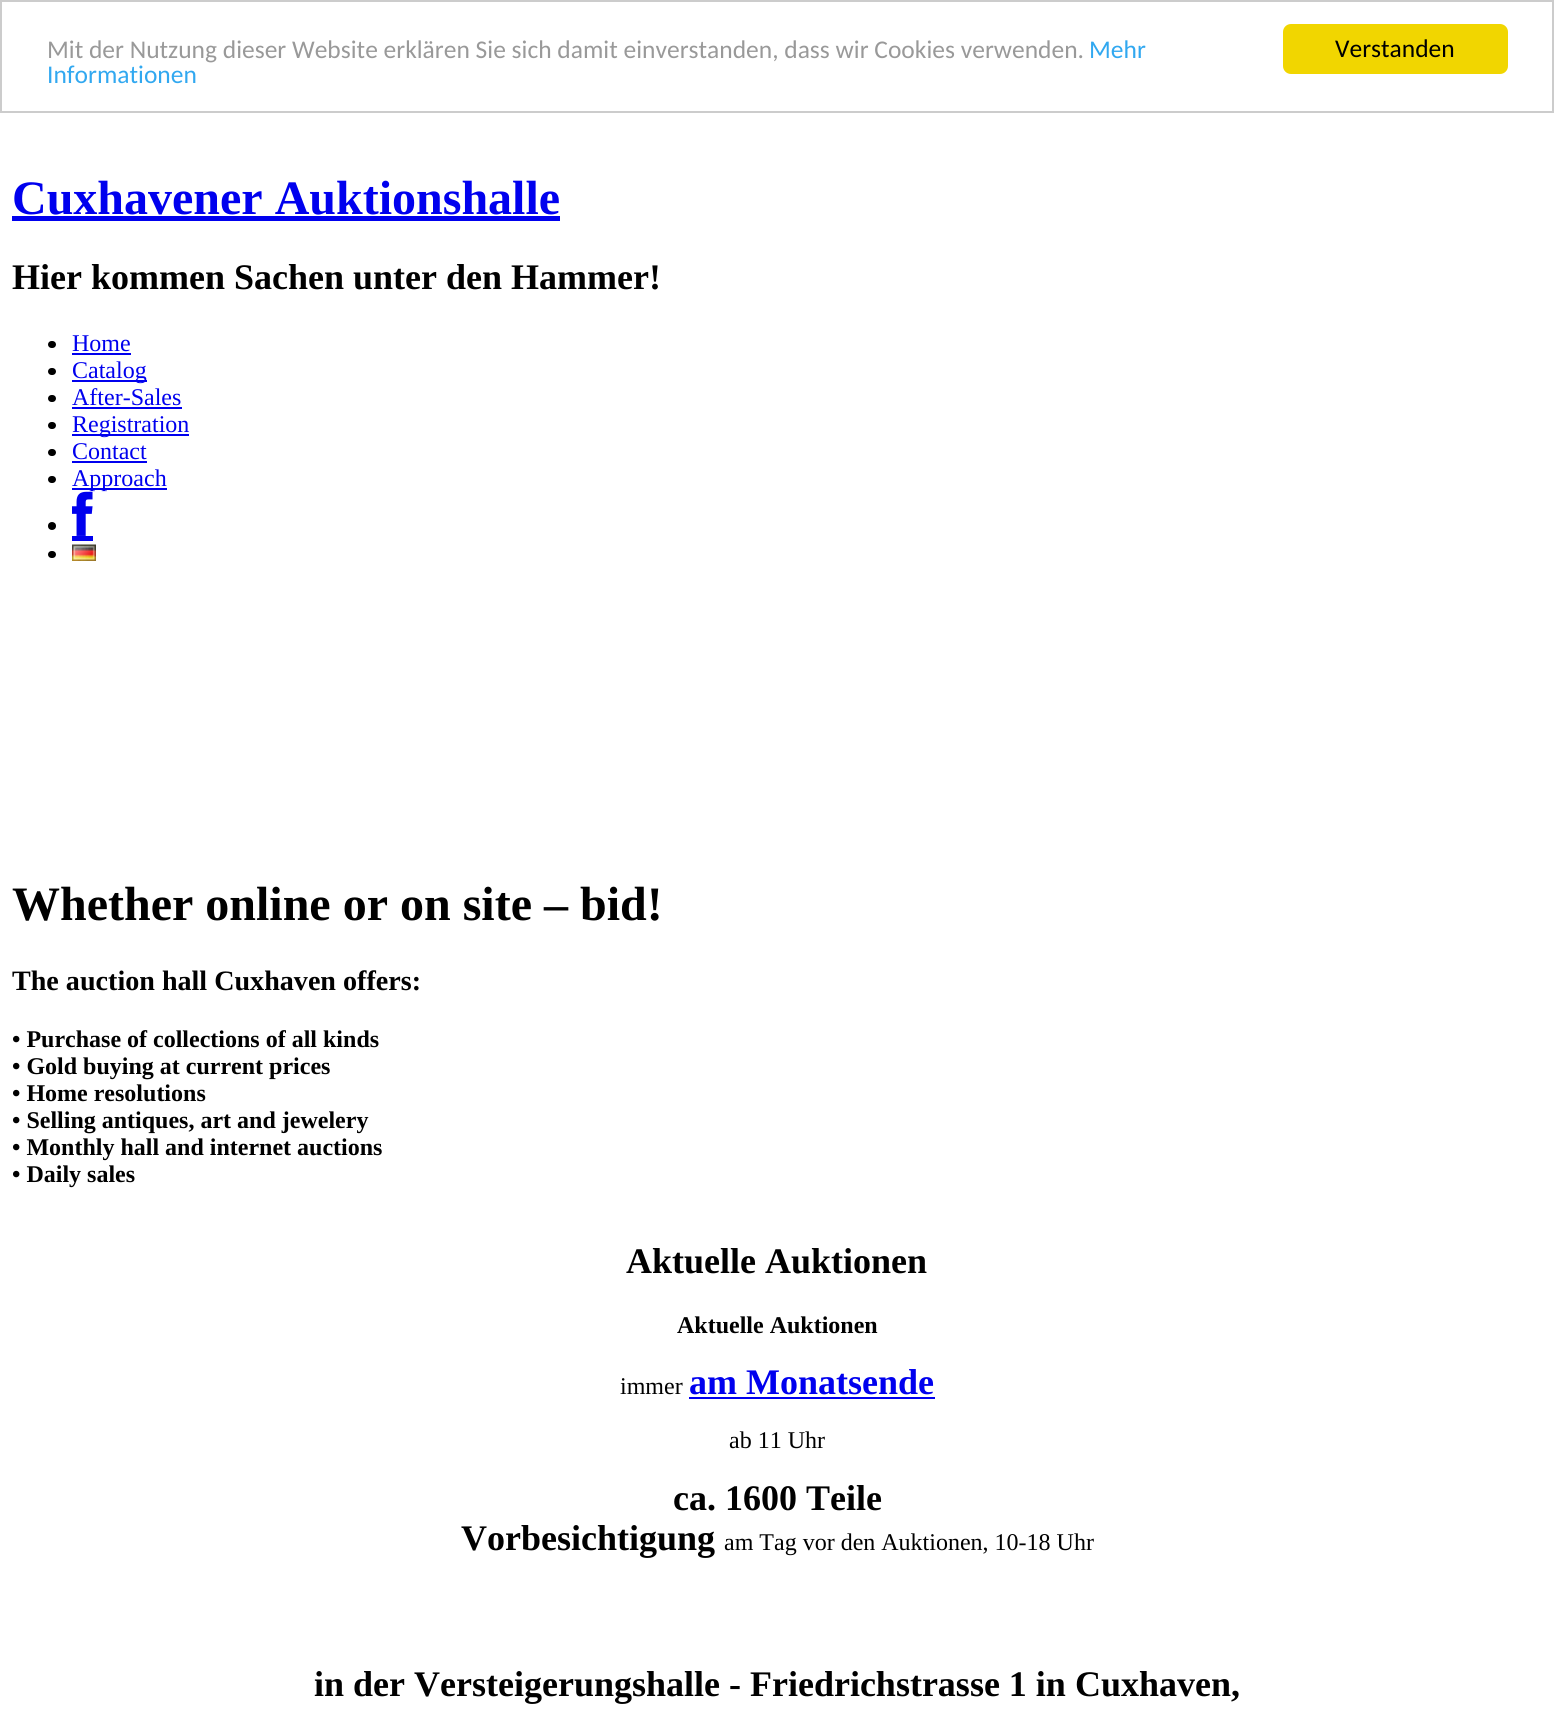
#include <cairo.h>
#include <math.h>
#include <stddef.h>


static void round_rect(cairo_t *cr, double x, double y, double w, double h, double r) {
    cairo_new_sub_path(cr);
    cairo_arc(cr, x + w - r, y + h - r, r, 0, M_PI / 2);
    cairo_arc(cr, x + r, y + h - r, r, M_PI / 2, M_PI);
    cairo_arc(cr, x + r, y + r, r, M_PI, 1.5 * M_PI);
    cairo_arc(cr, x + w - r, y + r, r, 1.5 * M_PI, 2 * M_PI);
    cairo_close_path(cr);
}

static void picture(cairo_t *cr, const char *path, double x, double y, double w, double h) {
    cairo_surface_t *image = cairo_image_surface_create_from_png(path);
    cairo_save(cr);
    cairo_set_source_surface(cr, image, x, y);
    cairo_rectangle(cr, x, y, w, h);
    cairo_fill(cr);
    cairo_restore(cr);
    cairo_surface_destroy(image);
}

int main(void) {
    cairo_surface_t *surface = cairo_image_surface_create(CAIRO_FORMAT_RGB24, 1554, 1731);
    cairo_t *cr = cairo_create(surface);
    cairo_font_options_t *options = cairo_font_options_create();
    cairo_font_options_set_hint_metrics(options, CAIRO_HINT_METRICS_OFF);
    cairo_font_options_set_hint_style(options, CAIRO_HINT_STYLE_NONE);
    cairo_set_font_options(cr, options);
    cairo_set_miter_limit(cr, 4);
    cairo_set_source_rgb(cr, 1, 1, 1);
    cairo_paint(cr);
    cairo_rectangle(cr, 1, 1, 1552, 111);
    cairo_set_source_rgb(cr, 0.8, 0.8, 0.8);
    cairo_stroke(cr);
    cairo_select_font_face(cr, "Carlito", CAIRO_FONT_SLANT_NORMAL, CAIRO_FONT_WEIGHT_NORMAL);
    cairo_set_font_size(cr, 25.5);
    cairo_set_source_rgb(cr, 0.6, 0.6, 0.6);
    cairo_move_to(cr, 47, 58);
    cairo_show_text(cr, "Mit der Nutzung dieser Website erklären Sie sich damit einverstanden, dass wir Cookies verwenden.");
    cairo_set_source_rgb(cr, 0.192, 0.659, 0.941);
    cairo_move_to(cr, 1089, 58);
    cairo_show_text(cr, "Mehr");
    cairo_move_to(cr, 47, 83);
    cairo_show_text(cr, "Informationen");
    cairo_set_source_rgb(cr, 0.945, 0.839, 0);
    round_rect(cr, 1283, 24, 225, 50, 8);
    cairo_fill(cr);
    cairo_set_source_rgb(cr, 0, 0, 0);
    cairo_move_to(cr, 1335, 57);
    cairo_show_text(cr, "Verstanden");
    cairo_select_font_face(cr, "Liberation Serif", CAIRO_FONT_SLANT_NORMAL, CAIRO_FONT_WEIGHT_BOLD);
    cairo_set_font_size(cr, 48);
    cairo_set_source_rgb(cr, 0, 0, 0.933);
    cairo_move_to(cr, 12, 214);
    cairo_show_text(cr, "Cuxhavener Auktionshalle");
    cairo_rectangle(cr, 12, 216, 548, 5);
    cairo_fill(cr);
    cairo_set_font_size(cr, 36);
    cairo_set_source_rgb(cr, 0, 0, 0);
    cairo_move_to(cr, 12, 289);
    cairo_show_text(cr, "Hier kommen Sachen unter den Hammer!");
    round_rect(cr, 48, 341, 8, 7, 3.5);
    cairo_fill(cr);
    cairo_select_font_face(cr, "Liberation Serif", CAIRO_FONT_SLANT_NORMAL, CAIRO_FONT_WEIGHT_NORMAL);
    cairo_set_font_size(cr, 24);
    cairo_set_source_rgb(cr, 0, 0, 0.933);
    cairo_move_to(cr, 72, 351);
    cairo_show_text(cr, "Home");
    cairo_rectangle(cr, 72, 353, 59, 2);
    cairo_fill(cr);
    cairo_set_source_rgb(cr, 0, 0, 0);
    round_rect(cr, 48, 368, 8, 7, 3.5);
    cairo_fill(cr);
    cairo_set_source_rgb(cr, 0, 0, 0.933);
    cairo_rectangle(cr, 72, 380, 75, 2);
    cairo_fill(cr);
    cairo_move_to(cr, 72, 378);
    cairo_show_text(cr, "Catalog");
    cairo_set_source_rgb(cr, 0, 0, 0);
    round_rect(cr, 48, 395, 8, 7, 3.5);
    cairo_fill(cr);
    cairo_set_source_rgb(cr, 0, 0, 0.933);
    cairo_move_to(cr, 72, 405);
    cairo_show_text(cr, "After-Sales");
    cairo_rectangle(cr, 72, 407, 110, 2);
    cairo_fill(cr);
    cairo_set_source_rgb(cr, 0, 0, 0);
    round_rect(cr, 48, 422, 8, 7, 3.5);
    cairo_fill(cr);
    cairo_set_source_rgb(cr, 0, 0, 0.933);
    cairo_rectangle(cr, 72, 434, 117, 2);
    cairo_fill(cr);
    cairo_move_to(cr, 72, 432);
    cairo_show_text(cr, "Registration");
    cairo_set_source_rgb(cr, 0, 0, 0);
    round_rect(cr, 48, 449, 8, 7, 3.5);
    cairo_fill(cr);
    cairo_set_source_rgb(cr, 0, 0, 0.933);
    cairo_move_to(cr, 72, 459);
    cairo_show_text(cr, "Contact");
    cairo_rectangle(cr, 72, 461, 75, 2);
    cairo_fill(cr);
    cairo_set_source_rgb(cr, 0, 0, 0);
    round_rect(cr, 48, 476, 8, 7, 3.5);
    cairo_fill(cr);
    cairo_set_source_rgb(cr, 0, 0, 0.933);
    cairo_rectangle(cr, 72, 488, 95, 2);
    cairo_fill(cr);
    cairo_move_to(cr, 72, 486);
    cairo_show_text(cr, "Approach");
    cairo_set_source_rgb(cr, 0, 0, 0);
    cairo_new_path(cr);
    cairo_arc(cr, 52, 526, 4, 0, 2 * M_PI);
    cairo_fill(cr);
    cairo_set_source_rgb(cr, 0, 0, 0.933);
    cairo_rectangle(cr, 72, 536, 21, 5);
    cairo_fill(cr);
    picture(cr, "img1.png", 72, 491, 21, 45);
    cairo_set_source_rgb(cr, 0, 0, 0);
    round_rect(cr, 48, 551, 8, 7, 3.5);
    cairo_fill(cr);
    picture(cr, "img2.png", 72, 544, 24, 17);
    cairo_select_font_face(cr, "Liberation Serif", CAIRO_FONT_SLANT_NORMAL, CAIRO_FONT_WEIGHT_BOLD);
    cairo_set_font_size(cr, 48);
    cairo_move_to(cr, 12, 920);
    cairo_show_text(cr, "Whether online or on site – bid!");
    cairo_set_font_size(cr, 28.1);
    cairo_move_to(cr, 12, 990);
    cairo_show_text(cr, "The auction hall Cuxhaven offers:");
    cairo_set_font_size(cr, 24);
    cairo_move_to(cr, 12, 1047);
    cairo_show_text(cr, "• Purchase of collections of all kinds");
    cairo_move_to(cr, 12, 1074);
    cairo_show_text(cr, "• Gold buying at current prices");
    cairo_move_to(cr, 12, 1101);
    cairo_show_text(cr, "• Home resolutions");
    cairo_move_to(cr, 12, 1128);
    cairo_show_text(cr, "• Selling antiques, art and jewelery");
    cairo_move_to(cr, 12, 1155);
    cairo_show_text(cr, "• Monthly hall and internet auctions");
    cairo_move_to(cr, 12, 1182);
    cairo_show_text(cr, "• Daily sales");
    cairo_set_font_size(cr, 36);
    cairo_move_to(cr, 626, 1273);
    cairo_show_text(cr, "Aktuelle Auktionen");
    cairo_set_font_size(cr, 24);
    cairo_move_to(cr, 677, 1333);
    cairo_show_text(cr, "Aktuelle Auktionen");
    cairo_select_font_face(cr, "Liberation Serif", CAIRO_FONT_SLANT_NORMAL, CAIRO_FONT_WEIGHT_NORMAL);
    cairo_move_to(cr, 620, 1394);
    cairo_show_text(cr, "immer");
    cairo_select_font_face(cr, "Liberation Serif", CAIRO_FONT_SLANT_NORMAL, CAIRO_FONT_WEIGHT_BOLD);
    cairo_set_font_size(cr, 36);
    cairo_set_source_rgb(cr, 0, 0, 0.933);
    cairo_move_to(cr, 689, 1394);
    cairo_show_text(cr, "am Monatsende");
    cairo_rectangle(cr, 689, 1397, 246, 2);
    cairo_fill(cr);
    cairo_select_font_face(cr, "Liberation Serif", CAIRO_FONT_SLANT_NORMAL, CAIRO_FONT_WEIGHT_NORMAL);
    cairo_set_font_size(cr, 24);
    cairo_set_source_rgb(cr, 0, 0, 0);
    cairo_move_to(cr, 729, 1448);
    cairo_show_text(cr, "ab 11 Uhr");
    cairo_select_font_face(cr, "Liberation Serif", CAIRO_FONT_SLANT_NORMAL, CAIRO_FONT_WEIGHT_BOLD);
    cairo_set_font_size(cr, 36);
    cairo_move_to(cr, 673, 1510);
    cairo_show_text(cr, "ca. 1600 Teile");
    cairo_move_to(cr, 461, 1550);
    cairo_show_text(cr, "Vorbesichtigung");
    cairo_select_font_face(cr, "Liberation Serif", CAIRO_FONT_SLANT_NORMAL, CAIRO_FONT_WEIGHT_NORMAL);
    cairo_set_font_size(cr, 24);
    cairo_move_to(cr, 724, 1550);
    cairo_show_text(cr, "am Tag vor den Auktionen, 10-18 Uhr");
    cairo_select_font_face(cr, "Liberation Serif", CAIRO_FONT_SLANT_NORMAL, CAIRO_FONT_WEIGHT_BOLD);
    cairo_set_font_size(cr, 36);
    cairo_move_to(cr, 314, 1696);
    cairo_show_text(cr, "in der Versteigerungshalle - Friedrichstrasse 1 in Cuxhaven,");
    cairo_surface_write_to_png(surface, "page.png");
    cairo_font_options_destroy(options);
    cairo_destroy(cr);
    cairo_surface_destroy(surface);
    return 0;
}
